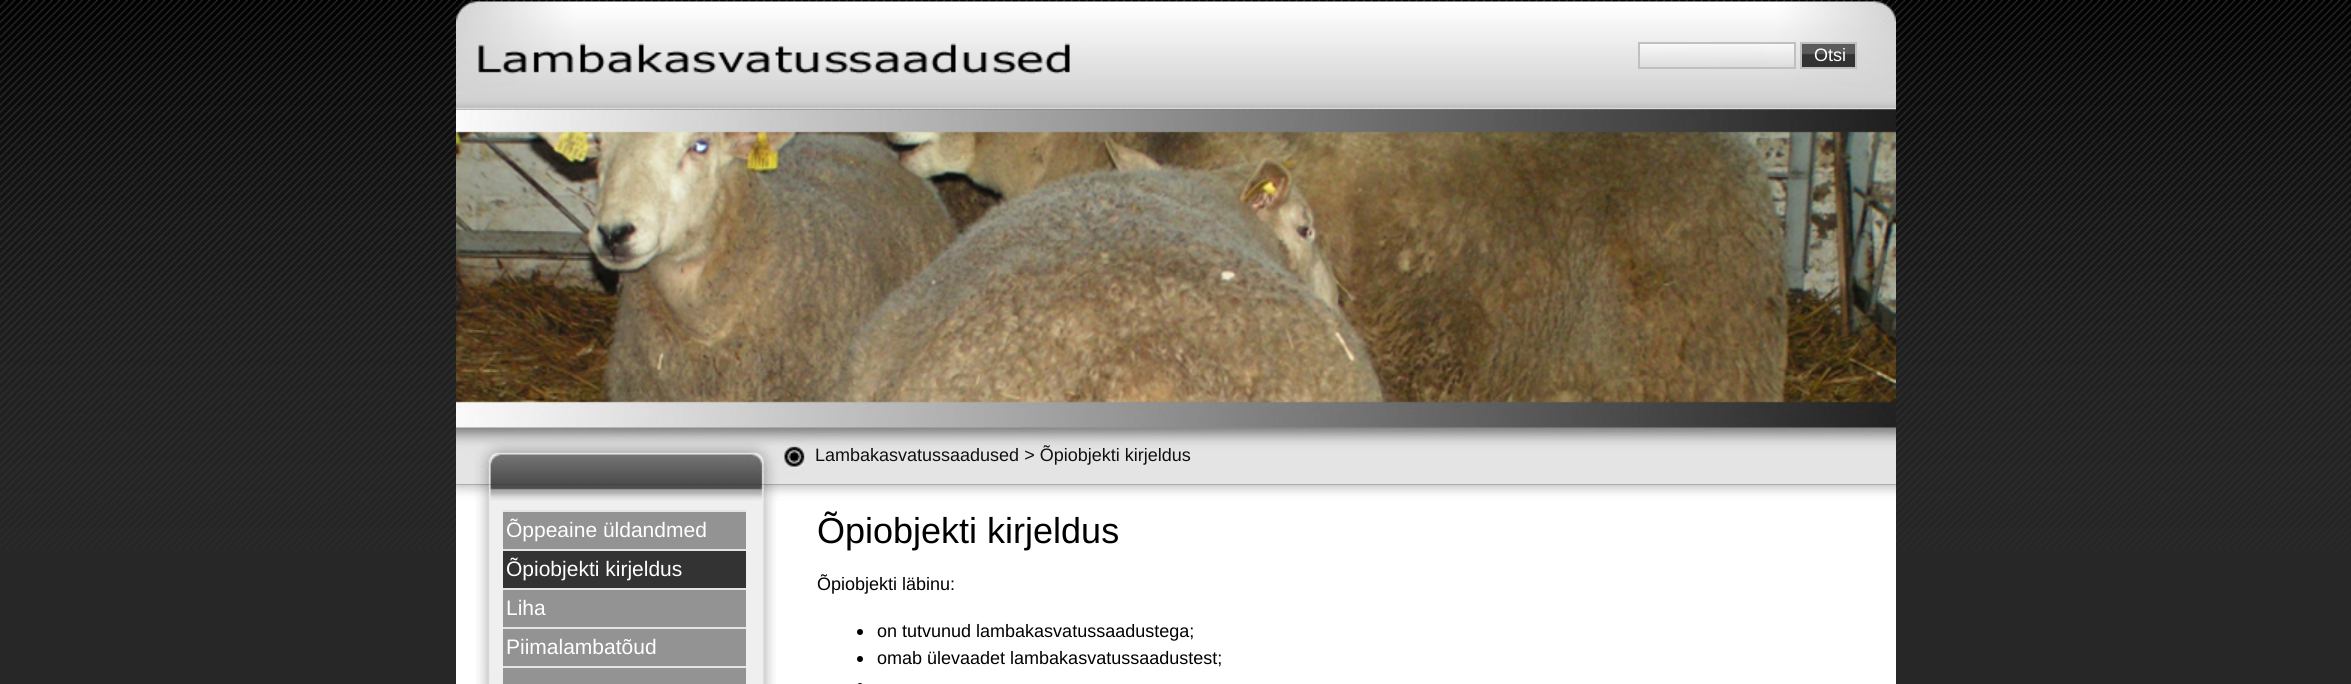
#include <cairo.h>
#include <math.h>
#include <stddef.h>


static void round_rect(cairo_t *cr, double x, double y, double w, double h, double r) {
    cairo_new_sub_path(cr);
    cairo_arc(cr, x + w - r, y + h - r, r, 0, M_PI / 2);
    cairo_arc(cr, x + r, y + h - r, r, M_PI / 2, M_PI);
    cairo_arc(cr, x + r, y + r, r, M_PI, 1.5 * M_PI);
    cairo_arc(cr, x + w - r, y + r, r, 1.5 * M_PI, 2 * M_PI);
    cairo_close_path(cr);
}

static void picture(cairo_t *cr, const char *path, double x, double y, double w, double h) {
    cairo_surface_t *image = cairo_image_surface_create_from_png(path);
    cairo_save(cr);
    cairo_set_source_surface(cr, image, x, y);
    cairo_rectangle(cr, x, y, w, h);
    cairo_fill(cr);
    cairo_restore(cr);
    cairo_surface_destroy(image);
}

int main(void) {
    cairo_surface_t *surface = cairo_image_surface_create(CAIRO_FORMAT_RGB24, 2351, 684);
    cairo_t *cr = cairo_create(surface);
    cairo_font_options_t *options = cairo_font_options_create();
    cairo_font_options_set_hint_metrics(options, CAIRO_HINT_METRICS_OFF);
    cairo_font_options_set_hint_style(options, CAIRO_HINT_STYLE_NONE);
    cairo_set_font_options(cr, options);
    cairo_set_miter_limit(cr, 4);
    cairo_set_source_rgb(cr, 0.153, 0.153, 0.153);
    cairo_paint(cr);
    picture(cr, "img1.png", 0, 0, 2351, 549);
    picture(cr, "img2.png", 456, 1, 1440, 109);
    picture(cr, "img3.png", 1640, 44, 154, 23);
    cairo_rectangle(cr, 1639, 43, 156, 25);
    cairo_set_source_rgb(cr, 0.753, 0.753, 0.753);
    cairo_stroke(cr);
    picture(cr, "img4.png", 1802, 44, 53, 23);
    cairo_rectangle(cr, 1801, 43, 55, 25);
    cairo_stroke(cr);
    cairo_select_font_face(cr, "Liberation Sans", CAIRO_FONT_SLANT_NORMAL, CAIRO_FONT_WEIGHT_NORMAL);
    cairo_set_font_size(cr, 18);
    cairo_set_source_rgb(cr, 1, 1, 1);
    cairo_move_to(cr, 1814, 61);
    cairo_show_text(cr, "Otsi");
    picture(cr, "img5.png", 456, 109, 1440, 317);
    picture(cr, "img6.png", 456, 426, 1440, 59);
    cairo_set_source_rgb(cr, 0.063, 0.063, 0.063);
    cairo_move_to(cr, 815, 461);
    cairo_show_text(cr, "Lambakasvatussaadused > Õpiobjekti kirjeldus");
    picture(cr, "img7.png", 456, 484, 1440, 17);
    cairo_set_source_rgb(cr, 1, 1, 1);
    cairo_rectangle(cr, 456, 501, 1440, 183);
    cairo_fill(cr);
    picture(cr, "img8.png", 476, 501, 300, 183);
    cairo_set_source_rgb(cr, 0.576, 0.576, 0.576);
    cairo_rectangle(cr, 503, 512, 243, 37);
    cairo_fill(cr);
    cairo_set_source_rgb(cr, 0.894, 0.894, 0.894);
    cairo_rectangle(cr, 503, 510, 243, 2);
    cairo_fill(cr);
    cairo_set_font_size(cr, 21);
    cairo_set_source_rgb(cr, 1, 1, 1);
    cairo_move_to(cr, 506, 537);
    cairo_show_text(cr, "Õppeaine üldandmed");
    cairo_set_source_rgb(cr, 0.2, 0.2, 0.2);
    cairo_rectangle(cr, 503, 551, 243, 37);
    cairo_fill(cr);
    cairo_set_source_rgb(cr, 0.894, 0.894, 0.894);
    cairo_rectangle(cr, 503, 549, 243, 2);
    cairo_fill(cr);
    cairo_set_source_rgb(cr, 1, 1, 1);
    cairo_move_to(cr, 506, 576);
    cairo_show_text(cr, "Õpiobjekti kirjeldus");
    cairo_set_source_rgb(cr, 0.576, 0.576, 0.576);
    cairo_rectangle(cr, 503, 590, 243, 37);
    cairo_fill(cr);
    cairo_set_source_rgb(cr, 0.894, 0.894, 0.894);
    cairo_rectangle(cr, 503, 588, 243, 2);
    cairo_fill(cr);
    cairo_set_source_rgb(cr, 1, 1, 1);
    cairo_move_to(cr, 506, 615);
    cairo_show_text(cr, "Liha");
    cairo_set_source_rgb(cr, 0.576, 0.576, 0.576);
    cairo_rectangle(cr, 503, 629, 243, 37);
    cairo_fill(cr);
    cairo_set_source_rgb(cr, 0.894, 0.894, 0.894);
    cairo_rectangle(cr, 503, 627, 243, 2);
    cairo_fill(cr);
    cairo_set_source_rgb(cr, 1, 1, 1);
    cairo_move_to(cr, 506, 654);
    cairo_show_text(cr, "Piimalambatõud");
    cairo_set_source_rgb(cr, 0.576, 0.576, 0.576);
    cairo_rectangle(cr, 503, 668, 243, 16);
    cairo_fill(cr);
    cairo_set_source_rgb(cr, 0.894, 0.894, 0.894);
    cairo_rectangle(cr, 503, 666, 243, 2);
    cairo_fill(cr);
    cairo_set_font_size(cr, 36);
    cairo_set_source_rgb(cr, 0.004, 0.004, 0.004);
    cairo_move_to(cr, 817, 543);
    cairo_show_text(cr, "Õpiobjekti kirjeldus");
    cairo_set_font_size(cr, 18);
    cairo_move_to(cr, 817, 590);
    cairo_show_text(cr, "Õpiobjekti läbinu:");
    cairo_set_source_rgb(cr, 0, 0, 0);
    cairo_new_path(cr);
    cairo_arc(cr, 860, 632, 3, 0, 2 * M_PI);
    cairo_fill(cr);
    cairo_set_source_rgb(cr, 0.004, 0.004, 0.004);
    cairo_move_to(cr, 877, 637);
    cairo_show_text(cr, "on tutvunud lambakasvatussaadustega;");
    cairo_set_source_rgb(cr, 0, 0, 0);
    cairo_new_path(cr);
    cairo_arc(cr, 860, 659, 3, 0, 2 * M_PI);
    cairo_fill(cr);
    cairo_set_source_rgb(cr, 0.004, 0.004, 0.004);
    cairo_move_to(cr, 877, 664);
    cairo_show_text(cr, "omab ülevaadet lambakasvatussaadustest;");
    cairo_set_source_rgb(cr, 0, 0, 0);
    round_rect(cr, 857, 683, 6, 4, 3);
    cairo_fill(cr);
    cairo_surface_write_to_png(surface, "page.png");
    cairo_font_options_destroy(options);
    cairo_destroy(cr);
    cairo_surface_destroy(surface);
    return 0;
}
